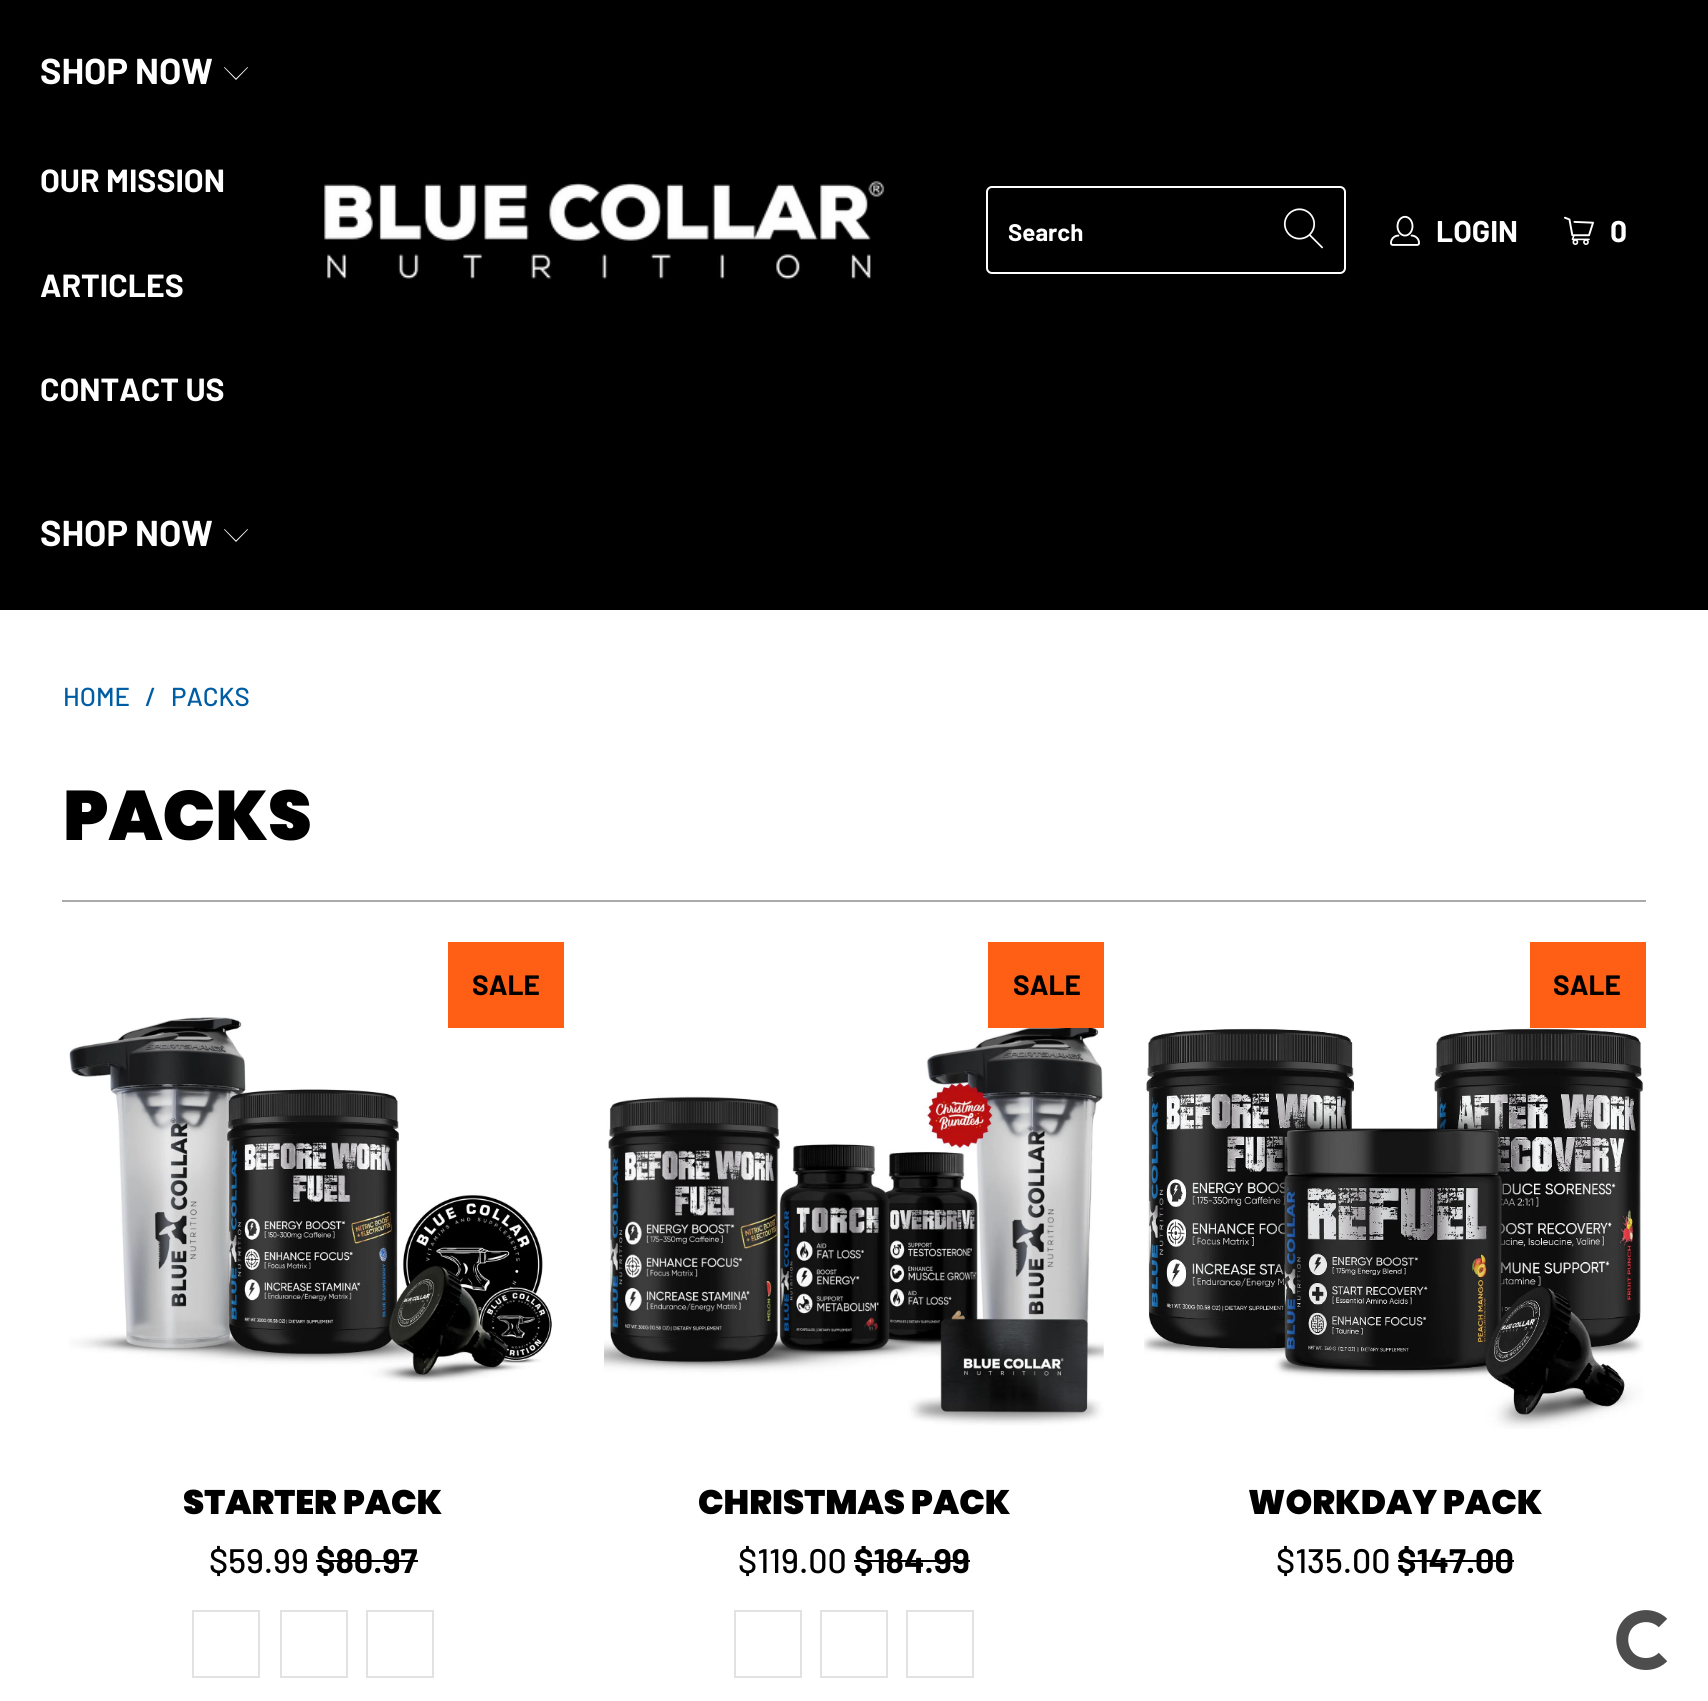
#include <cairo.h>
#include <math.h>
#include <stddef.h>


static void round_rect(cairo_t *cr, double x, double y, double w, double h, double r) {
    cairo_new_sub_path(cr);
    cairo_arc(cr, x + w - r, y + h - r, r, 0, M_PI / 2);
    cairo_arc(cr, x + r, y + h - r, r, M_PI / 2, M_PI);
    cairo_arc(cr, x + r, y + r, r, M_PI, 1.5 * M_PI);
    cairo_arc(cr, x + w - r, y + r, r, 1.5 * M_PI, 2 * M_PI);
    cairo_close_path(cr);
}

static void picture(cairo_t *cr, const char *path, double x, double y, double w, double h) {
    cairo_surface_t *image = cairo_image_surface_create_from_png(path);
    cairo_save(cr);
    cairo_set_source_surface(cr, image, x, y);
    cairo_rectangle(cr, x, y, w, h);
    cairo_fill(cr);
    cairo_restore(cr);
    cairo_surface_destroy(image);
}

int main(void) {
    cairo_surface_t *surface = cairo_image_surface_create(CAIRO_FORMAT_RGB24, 1708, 1701);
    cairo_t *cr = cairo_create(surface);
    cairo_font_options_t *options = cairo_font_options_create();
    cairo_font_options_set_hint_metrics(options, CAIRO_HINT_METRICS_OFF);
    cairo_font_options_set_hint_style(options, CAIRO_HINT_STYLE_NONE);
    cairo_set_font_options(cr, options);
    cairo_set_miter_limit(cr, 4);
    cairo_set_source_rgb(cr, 1, 1, 1);
    cairo_paint(cr);
    cairo_set_source_rgb(cr, 0, 0, 0);
    cairo_rectangle(cr, 0, 0, 1708, 610);
    cairo_fill(cr);
    cairo_select_font_face(cr, "Barlow", CAIRO_FONT_SLANT_NORMAL, CAIRO_FONT_WEIGHT_BOLD);
    cairo_set_font_size(cr, 36);
    cairo_set_source_rgb(cr, 1, 1, 1);
    cairo_move_to(cr, 40, 84);
    cairo_show_text(cr, "SHOP NOW");
    cairo_new_path(cr);
    cairo_move_to(cr, 236, 80);
    cairo_line_to(cr, 224, 67.5);
    cairo_line_to(cr, 224.5, 67);
    cairo_line_to(cr, 236, 78.5);
    cairo_line_to(cr, 247.5, 67);
    cairo_line_to(cr, 248, 67.5);
    cairo_close_path(cr);
    cairo_fill(cr);
    cairo_set_font_size(cr, 32);
    cairo_move_to(cr, 40, 192);
    cairo_show_text(cr, "OUR MISSION");
    cairo_move_to(cr, 40, 297);
    cairo_show_text(cr, "ARTICLES");
    cairo_move_to(cr, 40, 401);
    cairo_show_text(cr, "CONTACT US");
    picture(cr, "img1.png", 324, 181, 561, 99);
    round_rect(cr, 987, 187, 358, 86, 5);
    cairo_stroke(cr);
    cairo_set_font_size(cr, 24);
    cairo_move_to(cr, 1008, 241);
    cairo_show_text(cr, "Search");
    picture(cr, "img2.png", 1283, 208, 41, 41);
    picture(cr, "img3.png", 1390, 215, 30, 31);
    cairo_set_font_size(cr, 30);
    cairo_move_to(cr, 1436, 242);
    cairo_show_text(cr, "LOGIN");
    picture(cr, "img4.png", 1564, 216, 30, 29);
    cairo_move_to(cr, 1610, 242);
    cairo_show_text(cr, "0");
    cairo_set_font_size(cr, 36);
    cairo_move_to(cr, 40, 546);
    cairo_show_text(cr, "SHOP NOW");
    cairo_new_path(cr);
    cairo_move_to(cr, 236, 542);
    cairo_line_to(cr, 224, 529.5);
    cairo_line_to(cr, 224.5, 529);
    cairo_line_to(cr, 236, 540.5);
    cairo_line_to(cr, 247.5, 529);
    cairo_line_to(cr, 248, 529.5);
    cairo_close_path(cr);
    cairo_fill(cr);
    cairo_select_font_face(cr, "Barlow Medium", CAIRO_FONT_SLANT_NORMAL, CAIRO_FONT_WEIGHT_NORMAL);
    cairo_set_font_size(cr, 26);
    cairo_set_source_rgb(cr, 0, 0.365, 0.643);
    cairo_move_to(cr, 63, 706);
    cairo_show_text(cr, "HOME");
    cairo_move_to(cr, 145, 706);
    cairo_show_text(cr, "/");
    cairo_move_to(cr, 171, 706);
    cairo_show_text(cr, "PACKS");
    cairo_select_font_face(cr, "Poppins Black", CAIRO_FONT_SLANT_NORMAL, CAIRO_FONT_WEIGHT_NORMAL);
    cairo_set_font_size(cr, 70);
    cairo_set_source_rgb(cr, 0, 0, 0);
    cairo_move_to(cr, 63, 840);
    cairo_show_text(cr, "PACKS");
    cairo_set_source_rgb(cr, 0.667, 0.667, 0.667);
    cairo_rectangle(cr, 62, 900, 1584, 2);
    cairo_fill(cr);
    picture(cr, "img5.png", 69, 1017, 483, 365);
    cairo_set_source_rgb(cr, 1, 0.373, 0.082);
    cairo_rectangle(cr, 448, 942, 116, 86);
    cairo_fill(cr);
    cairo_select_font_face(cr, "Barlow", CAIRO_FONT_SLANT_NORMAL, CAIRO_FONT_WEIGHT_BOLD);
    cairo_set_font_size(cr, 28);
    cairo_set_source_rgb(cr, 0, 0, 0);
    cairo_move_to(cr, 472, 995);
    cairo_show_text(cr, "SALE");
    cairo_select_font_face(cr, "Poppins Black", CAIRO_FONT_SLANT_NORMAL, CAIRO_FONT_WEIGHT_NORMAL);
    cairo_set_font_size(cr, 34);
    cairo_move_to(cr, 183, 1514);
    cairo_show_text(cr, "STARTER PACK");
    cairo_select_font_face(cr, "Barlow Medium", CAIRO_FONT_SLANT_NORMAL, CAIRO_FONT_WEIGHT_NORMAL);
    cairo_move_to(cr, 209, 1573);
    cairo_show_text(cr, "$59.99");
    cairo_select_font_face(cr, "Barlow", CAIRO_FONT_SLANT_NORMAL, CAIRO_FONT_WEIGHT_BOLD);
    cairo_move_to(cr, 316, 1573);
    cairo_show_text(cr, "$80.97");
    cairo_rectangle(cr, 316, 1560, 102, 2);
    cairo_fill(cr);
    cairo_rectangle(cr, 193, 1611, 66, 66);
    cairo_set_source_rgb(cr, 0.886, 0.886, 0.886);
    cairo_stroke(cr);
    cairo_rectangle(cr, 281, 1611, 66, 66);
    cairo_stroke(cr);
    cairo_rectangle(cr, 367, 1611, 66, 66);
    cairo_stroke(cr);
    picture(cr, "img6.png", 604, 1024, 500, 402);
    cairo_set_source_rgb(cr, 1, 0.373, 0.082);
    cairo_rectangle(cr, 988, 942, 116, 86);
    cairo_fill(cr);
    cairo_set_font_size(cr, 28);
    cairo_set_source_rgb(cr, 0, 0, 0);
    cairo_move_to(cr, 1013, 995);
    cairo_show_text(cr, "SALE");
    cairo_select_font_face(cr, "Poppins Black", CAIRO_FONT_SLANT_NORMAL, CAIRO_FONT_WEIGHT_NORMAL);
    cairo_set_font_size(cr, 34);
    cairo_move_to(cr, 698, 1514);
    cairo_show_text(cr, "CHRISTMAS PACK");
    cairo_select_font_face(cr, "Barlow Medium", CAIRO_FONT_SLANT_NORMAL, CAIRO_FONT_WEIGHT_NORMAL);
    cairo_move_to(cr, 738, 1573);
    cairo_show_text(cr, "$119.00");
    cairo_select_font_face(cr, "Barlow", CAIRO_FONT_SLANT_NORMAL, CAIRO_FONT_WEIGHT_BOLD);
    cairo_move_to(cr, 854, 1573);
    cairo_show_text(cr, "$184.99");
    cairo_rectangle(cr, 854, 1560, 116, 2);
    cairo_fill(cr);
    cairo_rectangle(cr, 735, 1611, 66, 66);
    cairo_set_source_rgb(cr, 0.886, 0.886, 0.886);
    cairo_stroke(cr);
    cairo_rectangle(cr, 821, 1611, 66, 66);
    cairo_stroke(cr);
    cairo_rectangle(cr, 907, 1611, 66, 66);
    cairo_stroke(cr);
    cairo_set_source_rgb(cr, 1, 0.373, 0.082);
    cairo_rectangle(cr, 1530, 942, 116, 86);
    cairo_fill(cr);
    cairo_set_font_size(cr, 28);
    cairo_set_source_rgb(cr, 0, 0, 0);
    cairo_move_to(cr, 1553, 995);
    cairo_show_text(cr, "SALE");
    picture(cr, "img7.png", 1144, 1028, 500, 401);
    cairo_select_font_face(cr, "Poppins Black", CAIRO_FONT_SLANT_NORMAL, CAIRO_FONT_WEIGHT_NORMAL);
    cairo_set_font_size(cr, 34);
    cairo_move_to(cr, 1248, 1514);
    cairo_show_text(cr, "WORKDAY PACK");
    cairo_select_font_face(cr, "Barlow Medium", CAIRO_FONT_SLANT_NORMAL, CAIRO_FONT_WEIGHT_NORMAL);
    cairo_move_to(cr, 1276, 1573);
    cairo_show_text(cr, "$135.00");
    cairo_select_font_face(cr, "Barlow", CAIRO_FONT_SLANT_NORMAL, CAIRO_FONT_WEIGHT_BOLD);
    cairo_move_to(cr, 1397, 1573);
    cairo_show_text(cr, "$147.00");
    cairo_rectangle(cr, 1398, 1560, 116, 2);
    cairo_fill(cr);
    cairo_new_path(cr);
    cairo_move_to(cr, 1663, 1657);
    cairo_curve_to(cr, 1658.5, 1661.5, 1652.5, 1664, 1646, 1664);
    cairo_curve_to(cr, 1617.5, 1664, 1613, 1622, 1641.5, 1616.5);
    cairo_curve_to(cr, 1649, 1615, 1657.5, 1617.5, 1663, 1623);
    cairo_set_source_rgb(cr, 0.302, 0.302, 0.302);
    cairo_set_line_width(cr, 12);
    cairo_stroke(cr);
    cairo_surface_write_to_png(surface, "page.png");
    cairo_font_options_destroy(options);
    cairo_destroy(cr);
    cairo_surface_destroy(surface);
    return 0;
}
